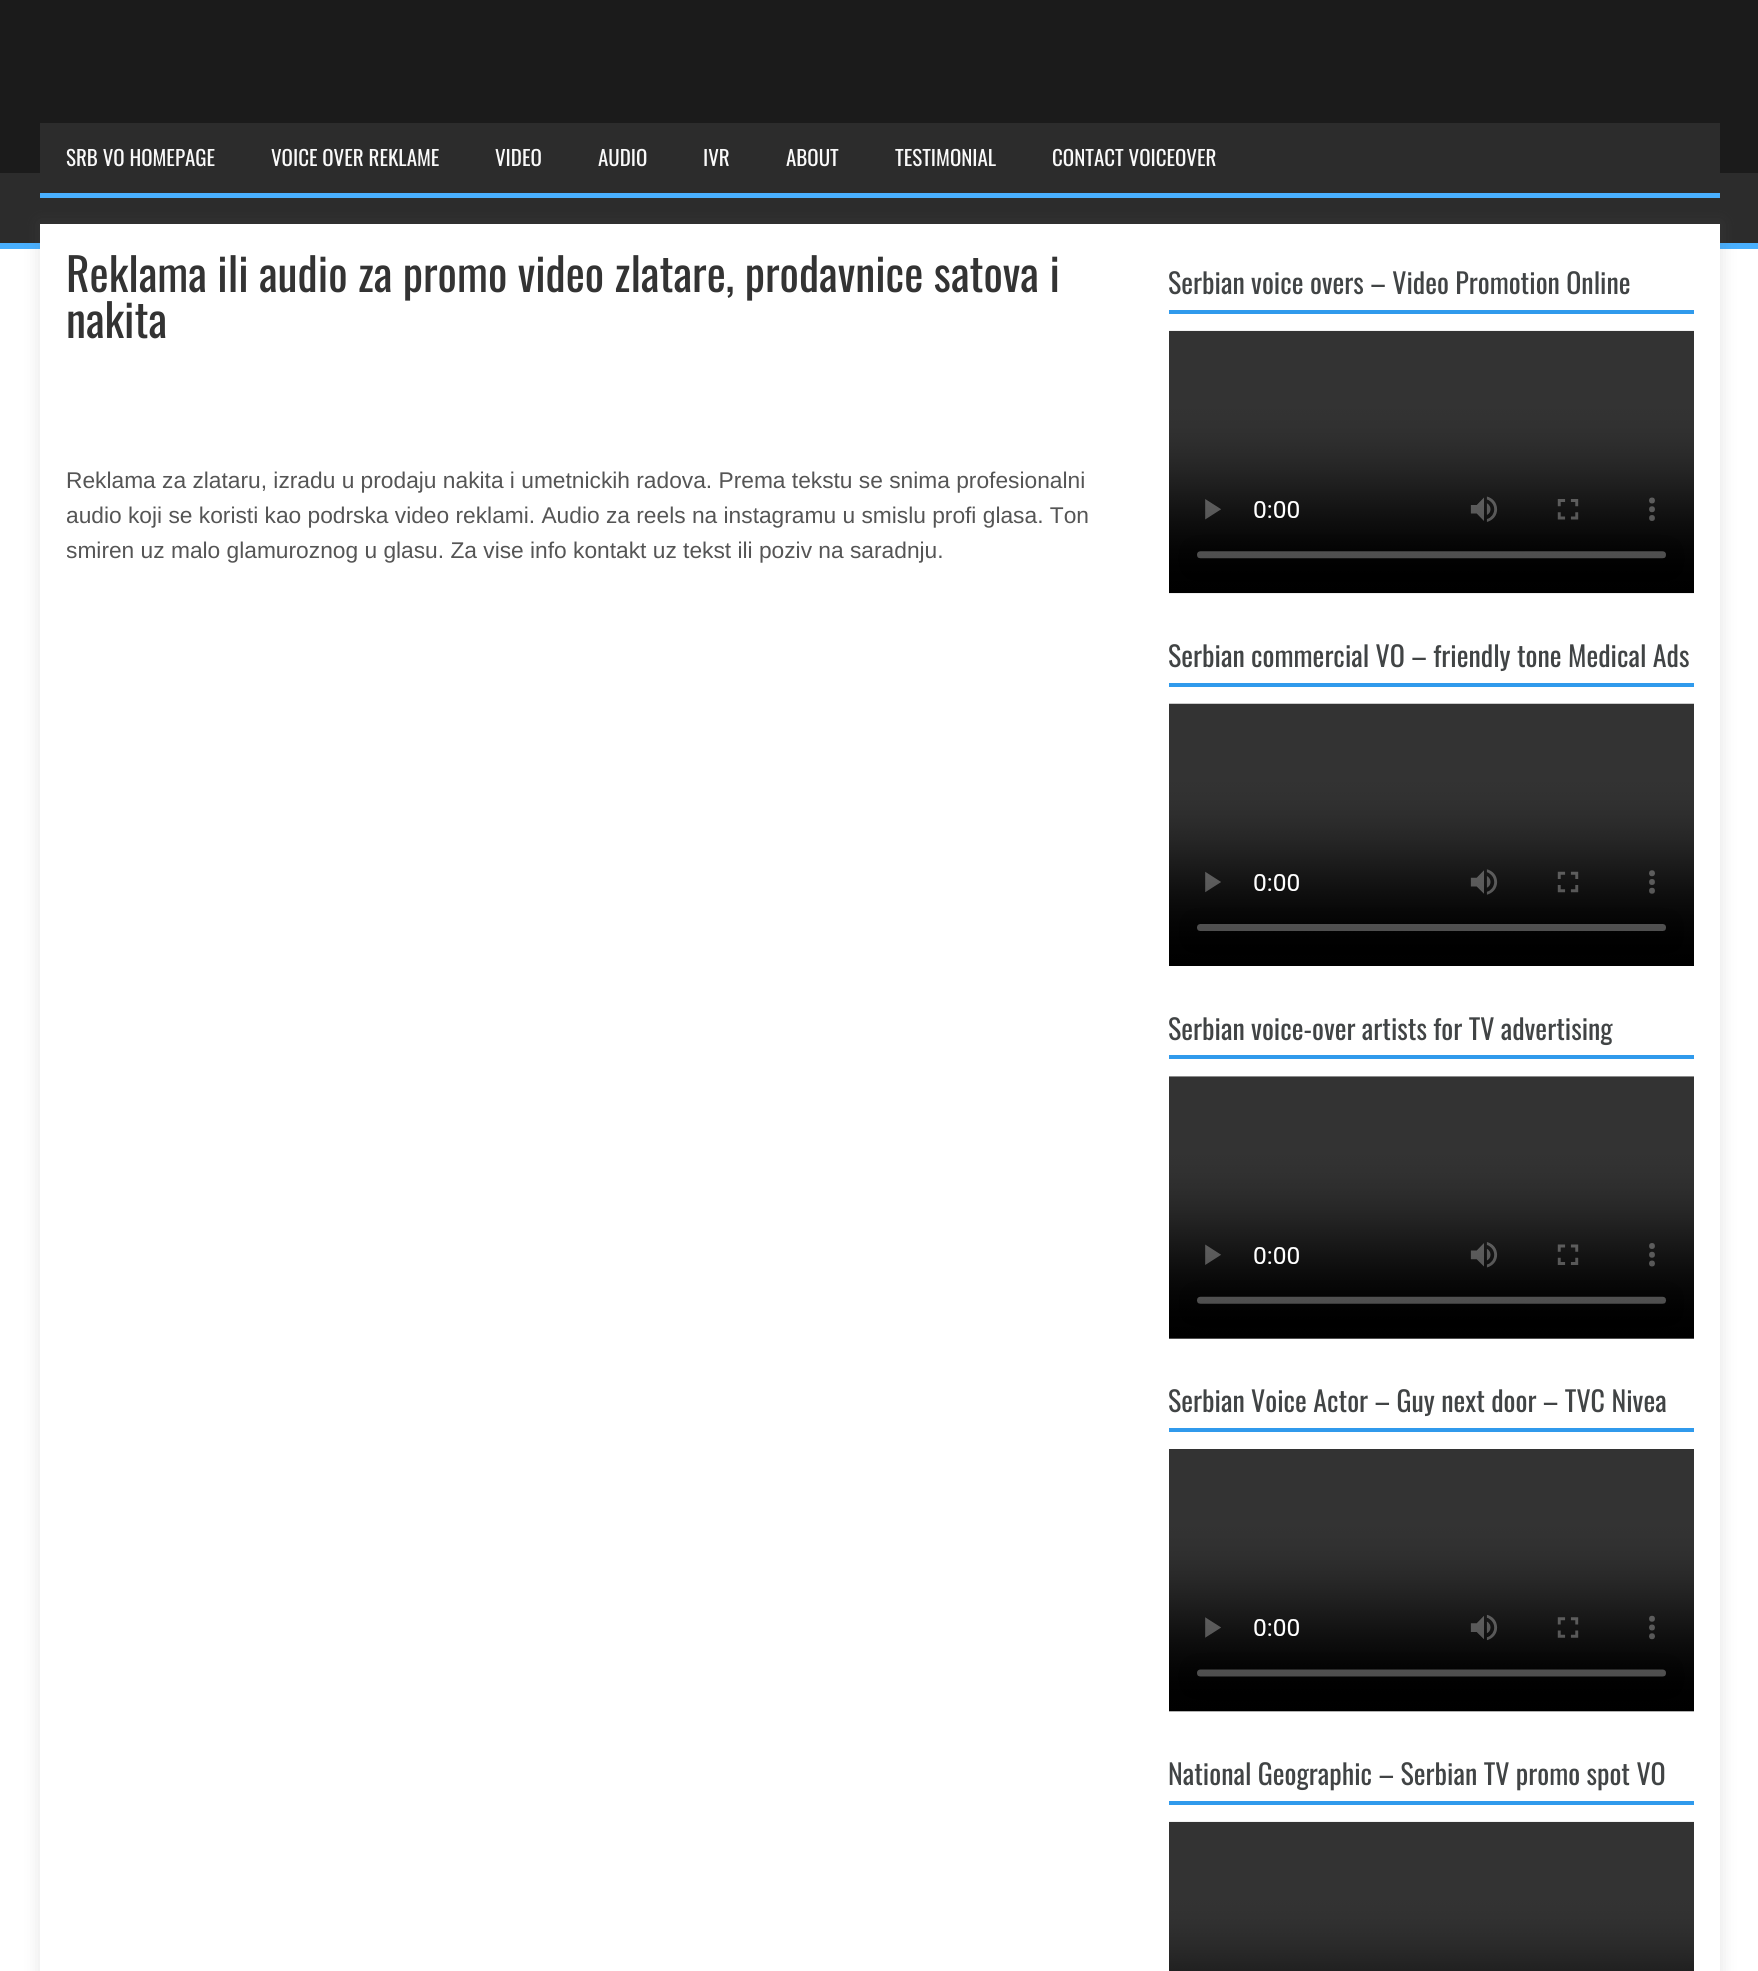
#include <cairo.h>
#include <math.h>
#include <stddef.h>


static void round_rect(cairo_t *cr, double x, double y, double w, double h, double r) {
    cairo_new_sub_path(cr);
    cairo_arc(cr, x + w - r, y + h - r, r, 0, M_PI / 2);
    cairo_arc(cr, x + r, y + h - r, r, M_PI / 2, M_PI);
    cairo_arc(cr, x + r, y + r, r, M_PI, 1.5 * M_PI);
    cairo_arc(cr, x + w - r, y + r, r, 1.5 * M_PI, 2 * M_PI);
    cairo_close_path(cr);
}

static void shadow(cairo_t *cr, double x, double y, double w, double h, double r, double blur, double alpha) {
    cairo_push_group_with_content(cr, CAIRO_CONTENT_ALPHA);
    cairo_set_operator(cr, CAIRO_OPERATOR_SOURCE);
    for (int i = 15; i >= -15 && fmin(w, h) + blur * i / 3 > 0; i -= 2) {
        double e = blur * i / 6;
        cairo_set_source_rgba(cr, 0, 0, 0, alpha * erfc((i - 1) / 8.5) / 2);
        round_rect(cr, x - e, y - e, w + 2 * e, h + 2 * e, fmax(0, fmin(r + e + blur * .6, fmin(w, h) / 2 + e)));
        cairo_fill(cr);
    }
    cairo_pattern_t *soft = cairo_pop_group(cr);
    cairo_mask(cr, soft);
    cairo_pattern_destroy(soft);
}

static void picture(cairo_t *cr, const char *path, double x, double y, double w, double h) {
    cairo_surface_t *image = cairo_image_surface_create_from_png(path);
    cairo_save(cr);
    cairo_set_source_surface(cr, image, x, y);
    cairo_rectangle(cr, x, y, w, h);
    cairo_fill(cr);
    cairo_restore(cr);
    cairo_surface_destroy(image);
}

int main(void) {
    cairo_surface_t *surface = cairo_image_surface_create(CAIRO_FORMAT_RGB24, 1758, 1971);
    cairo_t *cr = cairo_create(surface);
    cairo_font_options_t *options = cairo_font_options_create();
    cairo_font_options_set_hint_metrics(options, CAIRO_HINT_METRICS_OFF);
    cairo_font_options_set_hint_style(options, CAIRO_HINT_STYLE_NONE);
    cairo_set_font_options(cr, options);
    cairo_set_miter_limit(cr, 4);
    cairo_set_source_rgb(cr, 1, 1, 1);
    cairo_paint(cr);
    cairo_set_source_rgb(cr, 0.286, 0.69, 1);
    cairo_rectangle(cr, 0, 243, 1758, 6);
    cairo_fill(cr);
    cairo_set_source_rgb(cr, 0.173, 0.173, 0.173);
    cairo_rectangle(cr, 0, 173, 1758, 70);
    cairo_fill(cr);
    cairo_set_source_rgb(cr, 0.106, 0.106, 0.106);
    cairo_rectangle(cr, 0, 0, 1758, 173);
    cairo_fill(cr);
    cairo_set_source_rgb(cr, 0.173, 0.173, 0.173);
    cairo_rectangle(cr, 40, 123, 1680, 50);
    cairo_fill(cr);
    cairo_set_source_rgb(cr, 0.376, 0.376, 0.376);
    shadow(cr, 39, 222, 1683, 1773, 0, 8, 0.15);
    cairo_set_source_rgb(cr, 0.286, 0.69, 1);
    cairo_rectangle(cr, 40, 193, 1680, 5);
    cairo_fill(cr);
    cairo_select_font_face(cr, "Oswald", CAIRO_FONT_SLANT_NORMAL, CAIRO_FONT_WEIGHT_NORMAL);
    cairo_set_font_size(cr, 21);
    cairo_set_source_rgb(cr, 0.976, 0.976, 0.976);
    cairo_move_to(cr, 66, 166);
    cairo_show_text(cr, "SRB VO HOMEPAGE");
    cairo_move_to(cr, 271, 166);
    cairo_show_text(cr, "VOICE OVER REKLAME");
    cairo_move_to(cr, 495, 166);
    cairo_show_text(cr, "VIDEO");
    cairo_move_to(cr, 598, 166);
    cairo_show_text(cr, "AUDIO");
    cairo_move_to(cr, 703, 166);
    cairo_show_text(cr, "IVR");
    cairo_move_to(cr, 786, 166);
    cairo_show_text(cr, "ABOUT");
    cairo_move_to(cr, 895, 166);
    cairo_show_text(cr, "TESTIMONIAL");
    cairo_move_to(cr, 1052, 166);
    cairo_show_text(cr, "CONTACT VOICEOVER");
    cairo_set_source_rgb(cr, 1, 1, 1);
    cairo_rectangle(cr, 40, 224, 1680, 1747);
    cairo_fill(cr);
    cairo_set_font_size(cr, 45.5);
    cairo_set_source_rgb(cr, 0.2, 0.2, 0.2);
    cairo_move_to(cr, 66, 292);
    cairo_show_text(cr, "Reklama ili audio za promo video zlatare, prodavnice satova i");
    cairo_move_to(cr, 66, 338);
    cairo_show_text(cr, "nakita");
    cairo_select_font_face(cr, "Liberation Sans", CAIRO_FONT_SLANT_NORMAL, CAIRO_FONT_WEIGHT_NORMAL);
    cairo_set_font_size(cr, 22.75);
    cairo_set_source_rgb(cr, 0.333, 0.333, 0.333);
    cairo_move_to(cr, 66, 488);
    cairo_show_text(cr, "Reklama za zlataru, izradu u prodaju nakita i umetnickih radova. Prema tekstu se snima profesionalni");
    cairo_save(cr);
    cairo_rectangle(cr, 67, 250, 1076, 354);
    cairo_clip(cr);
    cairo_move_to(cr, 66, 523);
    cairo_show_text(cr, "audio koji se koristi kao podrska video reklami. Audio za reels na instagramu u smislu profi glasa. Ton");
    cairo_move_to(cr, 66, 558);
    cairo_show_text(cr, "smiren uz malo glamuroznog u glasu. Za vise info kontakt uz tekst ili poziv na saradnju.");
    cairo_restore(cr);
    cairo_set_source_rgb(cr, 0.188, 0.604, 0.925);
    cairo_rectangle(cr, 1169, 310, 525, 4);
    cairo_fill(cr);
    cairo_select_font_face(cr, "Oswald", CAIRO_FONT_SLANT_NORMAL, CAIRO_FONT_WEIGHT_NORMAL);
    cairo_set_font_size(cr, 28);
    cairo_set_source_rgb(cr, 0.255, 0.267, 0.271);
    cairo_move_to(cr, 1168, 294);
    cairo_show_text(cr, "Serbian voice overs – Video Promotion Online");
    picture(cr, "img1.png", 1169, 330, 525, 264);
    cairo_set_source_rgb(cr, 0.188, 0.604, 0.925);
    cairo_rectangle(cr, 1169, 683, 525, 4);
    cairo_fill(cr);
    cairo_set_source_rgb(cr, 0.255, 0.267, 0.271);
    cairo_move_to(cr, 1168, 667);
    cairo_show_text(cr, "Serbian commercial VO – friendly tone Medical Ads");
    picture(cr, "img2.png", 1169, 703, 525, 263);
    cairo_set_source_rgb(cr, 0.188, 0.604, 0.925);
    cairo_rectangle(cr, 1169, 1055, 525, 4);
    cairo_fill(cr);
    cairo_set_source_rgb(cr, 0.255, 0.267, 0.271);
    cairo_move_to(cr, 1168, 1040);
    cairo_show_text(cr, "Serbian voice-over artists for TV advertising");
    picture(cr, "img3.png", 1169, 1076, 525, 263);
    cairo_set_source_rgb(cr, 0.188, 0.604, 0.925);
    cairo_rectangle(cr, 1169, 1428, 525, 4);
    cairo_fill(cr);
    cairo_set_source_rgb(cr, 0.255, 0.267, 0.271);
    cairo_move_to(cr, 1168, 1412);
    cairo_show_text(cr, "Serbian Voice Actor – Guy next door – TVC Nivea");
    picture(cr, "img4.png", 1169, 1449, 525, 263);
    cairo_set_source_rgb(cr, 0.188, 0.604, 0.925);
    cairo_rectangle(cr, 1169, 1801, 525, 4);
    cairo_fill(cr);
    cairo_set_source_rgb(cr, 0.255, 0.267, 0.271);
    cairo_move_to(cr, 1168, 1785);
    cairo_show_text(cr, "National Geographic – Serbian TV promo spot VO");
    picture(cr, "img5.png", 1169, 1821, 525, 150);
    cairo_surface_write_to_png(surface, "page.png");
    cairo_font_options_destroy(options);
    cairo_destroy(cr);
    cairo_surface_destroy(surface);
    return 0;
}
